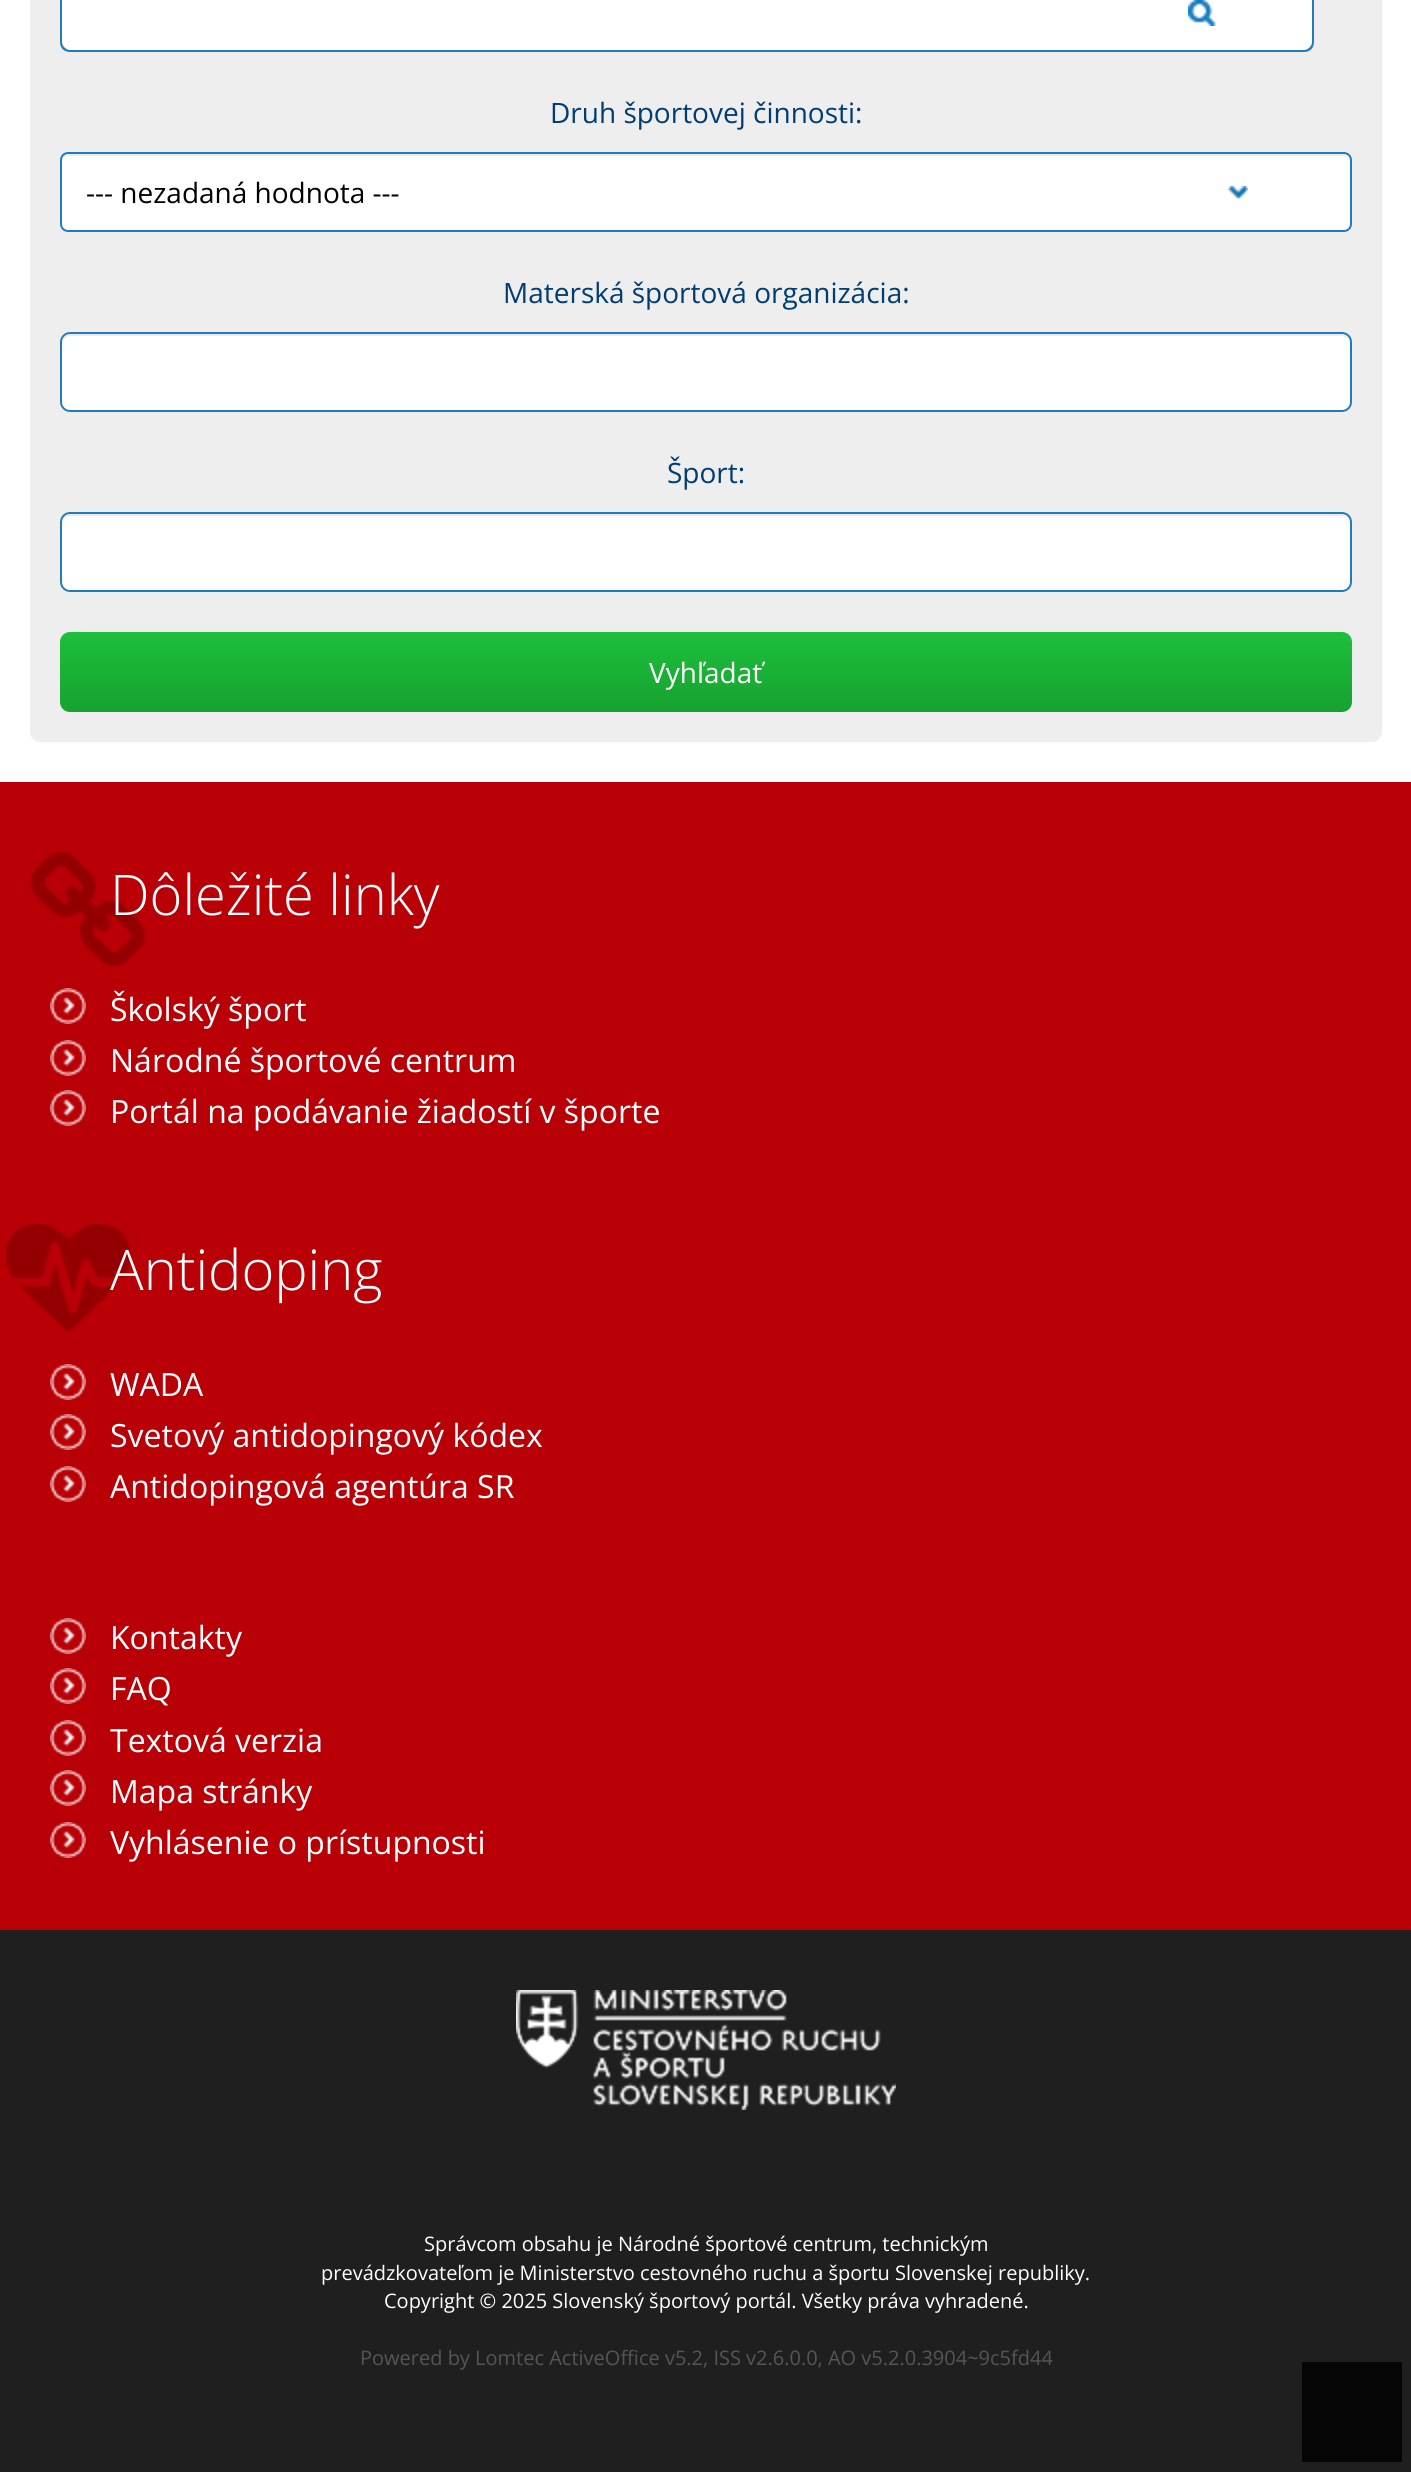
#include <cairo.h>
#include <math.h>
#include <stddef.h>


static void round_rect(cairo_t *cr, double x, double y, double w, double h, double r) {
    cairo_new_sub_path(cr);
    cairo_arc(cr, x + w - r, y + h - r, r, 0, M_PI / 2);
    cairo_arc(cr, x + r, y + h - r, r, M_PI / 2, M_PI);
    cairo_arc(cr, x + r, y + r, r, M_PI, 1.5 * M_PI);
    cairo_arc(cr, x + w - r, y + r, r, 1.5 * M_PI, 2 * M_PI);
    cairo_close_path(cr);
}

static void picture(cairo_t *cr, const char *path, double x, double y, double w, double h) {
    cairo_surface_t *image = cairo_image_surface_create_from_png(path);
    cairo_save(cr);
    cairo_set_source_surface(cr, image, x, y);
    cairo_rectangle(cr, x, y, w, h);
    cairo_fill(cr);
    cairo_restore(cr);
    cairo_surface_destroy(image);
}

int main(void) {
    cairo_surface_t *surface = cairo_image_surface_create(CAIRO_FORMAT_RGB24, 1411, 2472);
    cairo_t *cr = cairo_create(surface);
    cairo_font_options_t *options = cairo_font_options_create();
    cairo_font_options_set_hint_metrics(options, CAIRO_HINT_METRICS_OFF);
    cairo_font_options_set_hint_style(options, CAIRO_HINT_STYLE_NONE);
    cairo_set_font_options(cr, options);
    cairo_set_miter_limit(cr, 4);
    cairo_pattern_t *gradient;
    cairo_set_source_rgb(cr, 1, 1, 1);
    cairo_paint(cr);
    cairo_set_source_rgb(cr, 0.933, 0.933, 0.933);
    round_rect(cr, 30, -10, 1352, 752, 10);
    cairo_fill(cr);
    cairo_set_source_rgb(cr, 1, 1, 1);
    cairo_new_path(cr);
    cairo_move_to(cr, 70, -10);
    cairo_line_to(cr, 1094, -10);
    cairo_line_to(cr, 1094, 52);
    cairo_line_to(cr, 70, 52);
    cairo_curve_to(cr, 64.5, 52, 60, 47.5, 60, 42);
    cairo_line_to(cr, 60, 0);
    cairo_curve_to(cr, 60, -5.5, 64.5, -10, 70, -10);
    cairo_close_path(cr);
    cairo_fill(cr);
    cairo_set_source_rgb(cr, 0.118, 0.486, 0.749);
    cairo_set_fill_rule(cr, CAIRO_FILL_RULE_EVEN_ODD);
    cairo_new_path(cr);
    cairo_move_to(cr, 70, -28);
    cairo_line_to(cr, 1094, -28);
    cairo_line_to(cr, 1094, 52);
    cairo_line_to(cr, 70, 52);
    cairo_curve_to(cr, 64, 52, 60, 48, 60, 42);
    cairo_line_to(cr, 60, -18);
    cairo_curve_to(cr, 60, -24, 64, -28, 70, -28);
    cairo_close_path(cr);
    cairo_move_to(cr, 70, -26);
    cairo_line_to(cr, 1094, -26);
    cairo_line_to(cr, 1094, 50);
    cairo_line_to(cr, 70, 50);
    cairo_curve_to(cr, 66, 50, 62, 46, 62, 42);
    cairo_line_to(cr, 62, -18);
    cairo_curve_to(cr, 62, -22, 66, -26, 70, -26);
    cairo_close_path(cr);
    cairo_fill(cr);
    cairo_set_source_rgb(cr, 1, 1, 1);
    cairo_new_path(cr);
    cairo_move_to(cr, 1094, -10);
    cairo_line_to(cr, 1304, -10);
    cairo_curve_to(cr, 1309.5, -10, 1314, -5.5, 1314, 0);
    cairo_line_to(cr, 1314, 42);
    cairo_curve_to(cr, 1314, 47.5, 1309.5, 52, 1304, 52);
    cairo_line_to(cr, 1094, 52);
    cairo_close_path(cr);
    cairo_fill(cr);
    cairo_set_source_rgb(cr, 0.118, 0.486, 0.749);
    cairo_new_path(cr);
    cairo_move_to(cr, 1094, -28);
    cairo_line_to(cr, 1304, -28);
    cairo_curve_to(cr, 1310, -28, 1314, -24, 1314, -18);
    cairo_line_to(cr, 1314, 42);
    cairo_curve_to(cr, 1314, 48, 1310, 52, 1304, 52);
    cairo_line_to(cr, 1094, 52);
    cairo_close_path(cr);
    cairo_move_to(cr, 1094, -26);
    cairo_line_to(cr, 1304, -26);
    cairo_curve_to(cr, 1308, -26, 1312, -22, 1312, -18);
    cairo_line_to(cr, 1312, 42);
    cairo_curve_to(cr, 1312, 46, 1308, 50, 1304, 50);
    cairo_line_to(cr, 1094, 50);
    cairo_close_path(cr);
    cairo_fill(cr);
    picture(cr, "img1.png", 1188, 0, 28, 26);
    cairo_select_font_face(cr, "Open Sans", CAIRO_FONT_SLANT_NORMAL, CAIRO_FONT_WEIGHT_NORMAL);
    cairo_set_font_size(cr, 28);
    cairo_set_source_rgb(cr, 0, 0.239, 0.451);
    cairo_move_to(cr, 550, 123);
    cairo_show_text(cr, "Druh športovej činnosti:");
    cairo_set_source_rgb(cr, 1, 1, 1);
    round_rect(cr, 60, 152, 1292, 80, 8);
    cairo_fill(cr);
    picture(cr, "img2.png", 1228, 186, 20, 14);
    cairo_set_source_rgb(cr, 0.925, 0.925, 0.925);
    cairo_set_fill_rule(cr, CAIRO_FILL_RULE_WINDING);
    cairo_new_path(cr);
    cairo_move_to(cr, 68, 156);
    cairo_line_to(cr, 1344, 156);
    cairo_curve_to(cr, 1347, 156, 1350, 159, 1350, 162);
    cairo_line_to(cr, 1350, 160);
    cairo_curve_to(cr, 1350, 157, 1347, 154, 1344, 154);
    cairo_line_to(cr, 68, 154);
    cairo_curve_to(cr, 65, 154, 62, 157, 62, 160);
    cairo_line_to(cr, 62, 162);
    cairo_curve_to(cr, 62, 159, 65, 156, 68, 156);
    cairo_close_path(cr);
    cairo_fill(cr);
    round_rect(cr, 61, 153, 1290, 78, 7);
    cairo_set_source_rgb(cr, 0.118, 0.486, 0.749);
    cairo_stroke(cr);
    cairo_set_source_rgb(cr, 0, 0, 0);
    cairo_move_to(cr, 86, 203);
    cairo_show_text(cr, "--- nezadaná hodnota ---");
    cairo_set_source_rgb(cr, 0, 0.239, 0.451);
    cairo_move_to(cr, 503, 303);
    cairo_show_text(cr, "Materská športová organizácia:");
    cairo_set_source_rgb(cr, 1, 1, 1);
    round_rect(cr, 60, 332, 1292, 80, 10);
    cairo_fill(cr);
    cairo_set_source_rgb(cr, 0.925, 0.925, 0.925);
    cairo_new_path(cr);
    cairo_move_to(cr, 70, 336);
    cairo_line_to(cr, 1342, 336);
    cairo_curve_to(cr, 1346, 336, 1350, 340, 1350, 344);
    cairo_curve_to(cr, 1350, 339, 1348, 334, 1342, 334);
    cairo_line_to(cr, 70, 334);
    cairo_curve_to(cr, 64, 334, 62, 339, 62, 344);
    cairo_curve_to(cr, 62, 340, 66, 336, 70, 336);
    cairo_close_path(cr);
    cairo_fill(cr);
    round_rect(cr, 61, 333, 1290, 78, 9);
    cairo_set_source_rgb(cr, 0.118, 0.486, 0.749);
    cairo_stroke(cr);
    cairo_set_source_rgb(cr, 0, 0.239, 0.451);
    cairo_move_to(cr, 667, 483);
    cairo_show_text(cr, "Šport:");
    cairo_set_source_rgb(cr, 1, 1, 1);
    round_rect(cr, 60, 512, 1292, 80, 10);
    cairo_fill(cr);
    cairo_set_source_rgb(cr, 0.925, 0.925, 0.925);
    cairo_new_path(cr);
    cairo_move_to(cr, 70, 516);
    cairo_line_to(cr, 1342, 516);
    cairo_curve_to(cr, 1346, 516, 1350, 520, 1350, 524);
    cairo_curve_to(cr, 1350, 519, 1348, 514, 1342, 514);
    cairo_line_to(cr, 70, 514);
    cairo_curve_to(cr, 64, 514, 62, 519, 62, 524);
    cairo_curve_to(cr, 62, 520, 66, 516, 70, 516);
    cairo_close_path(cr);
    cairo_fill(cr);
    round_rect(cr, 61, 513, 1290, 78, 9);
    cairo_set_source_rgb(cr, 0.118, 0.486, 0.749);
    cairo_stroke(cr);
    gradient = cairo_pattern_create_linear(706, 632, 706, 712);
    cairo_pattern_add_color_stop_rgba(gradient, 0, 0.118, 0.749, 0.235, 1);
    cairo_pattern_add_color_stop_rgba(gradient, 1, 0.086, 0.635, 0.188, 1);
    cairo_set_source(cr, gradient);
    cairo_pattern_destroy(gradient);
    round_rect(cr, 60, 632, 1292, 80, 10);
    cairo_fill(cr);
    cairo_set_source_rgb(cr, 1, 1, 1);
    cairo_move_to(cr, 649, 683);
    cairo_show_text(cr, "Vyhľadať");
    cairo_set_source_rgb(cr, 0.722, 0, 0.027);
    cairo_rectangle(cr, 0, 782, 1411, 1148);
    cairo_fill(cr);
    picture(cr, "img3.png", 30, 852, 116, 114);
    cairo_select_font_face(cr, "Open Sans Light", CAIRO_FONT_SLANT_NORMAL, CAIRO_FONT_WEIGHT_NORMAL);
    cairo_set_font_size(cr, 56);
    cairo_set_source_rgb(cr, 1, 1, 1);
    cairo_move_to(cr, 110, 915);
    cairo_show_text(cr, "Dôležité linky");
    picture(cr, "img4.png", 50, 988, 36, 36);
    cairo_select_font_face(cr, "Open Sans", CAIRO_FONT_SLANT_NORMAL, CAIRO_FONT_WEIGHT_NORMAL);
    cairo_set_font_size(cr, 32);
    cairo_move_to(cr, 110, 1021);
    cairo_show_text(cr, "Školský šport");
    picture(cr, "img4.png", 50, 1040, 36, 36);
    cairo_move_to(cr, 110, 1072);
    cairo_show_text(cr, "Národné športové centrum");
    picture(cr, "img4.png", 50, 1090, 36, 36);
    cairo_move_to(cr, 110, 1123);
    cairo_show_text(cr, "Portál na podávanie žiadostí v športe");
    picture(cr, "img5.png", 6, 1224, 126, 108);
    cairo_select_font_face(cr, "Open Sans Light", CAIRO_FONT_SLANT_NORMAL, CAIRO_FONT_WEIGHT_NORMAL);
    cairo_set_font_size(cr, 56);
    cairo_move_to(cr, 110, 1290);
    cairo_show_text(cr, "Antidoping");
    picture(cr, "img4.png", 50, 1364, 36, 36);
    cairo_select_font_face(cr, "Open Sans", CAIRO_FONT_SLANT_NORMAL, CAIRO_FONT_WEIGHT_NORMAL);
    cairo_set_font_size(cr, 32);
    cairo_move_to(cr, 110, 1396);
    cairo_show_text(cr, "WADA");
    picture(cr, "img4.png", 50, 1414, 36, 36);
    cairo_move_to(cr, 110, 1447);
    cairo_show_text(cr, "Svetový antidopingový kódex");
    picture(cr, "img4.png", 50, 1466, 36, 36);
    cairo_move_to(cr, 110, 1498);
    cairo_show_text(cr, "Antidopingová agentúra SR");
    picture(cr, "img4.png", 50, 1618, 36, 36);
    cairo_move_to(cr, 110, 1649);
    cairo_show_text(cr, "Kontakty");
    picture(cr, "img4.png", 50, 1668, 36, 36);
    cairo_move_to(cr, 110, 1700);
    cairo_show_text(cr, "FAQ");
    picture(cr, "img4.png", 50, 1720, 36, 36);
    cairo_move_to(cr, 110, 1752);
    cairo_show_text(cr, "Textová verzia");
    picture(cr, "img4.png", 50, 1770, 36, 36);
    cairo_move_to(cr, 110, 1803);
    cairo_show_text(cr, "Mapa stránky");
    picture(cr, "img4.png", 50, 1822, 36, 36);
    cairo_move_to(cr, 110, 1854);
    cairo_show_text(cr, "Vyhlásenie o prístupnosti");
    cairo_set_source_rgb(cr, 0.122, 0.122, 0.122);
    cairo_rectangle(cr, 0, 1930, 1411, 542);
    cairo_fill(cr);
    picture(cr, "img6.png", 516, 1990, 380, 120);
    cairo_set_font_size(cr, 20);
    cairo_set_source_rgb(cr, 1, 1, 1);
    cairo_move_to(cr, 424, 2251);
    cairo_show_text(cr, "Správcom obsahu je Národné športové centrum, technickým");
    cairo_move_to(cr, 321, 2280);
    cairo_show_text(cr, "prevádzkovateľom je Ministerstvo cestovného ruchu a športu Slovenskej republiky.");
    cairo_move_to(cr, 384, 2308);
    cairo_show_text(cr, "Copyright © 2025 Slovenský športový portál. Všetky práva vyhradené.");
    cairo_set_source_rgb(cr, 0.333, 0.333, 0.333);
    cairo_move_to(cr, 360, 2365);
    cairo_show_text(cr, "Powered by Lomtec ActiveOffice v5.2, ISS v2.6.0.0, AO v5.2.0.3904~9c5fd44");
    cairo_set_source_rgb(cr, 0.024, 0.024, 0.024);
    cairo_rectangle(cr, 1302, 2362, 100, 100);
    cairo_fill(cr);
    cairo_surface_write_to_png(surface, "page.png");
    cairo_font_options_destroy(options);
    cairo_destroy(cr);
    cairo_surface_destroy(surface);
    return 0;
}
